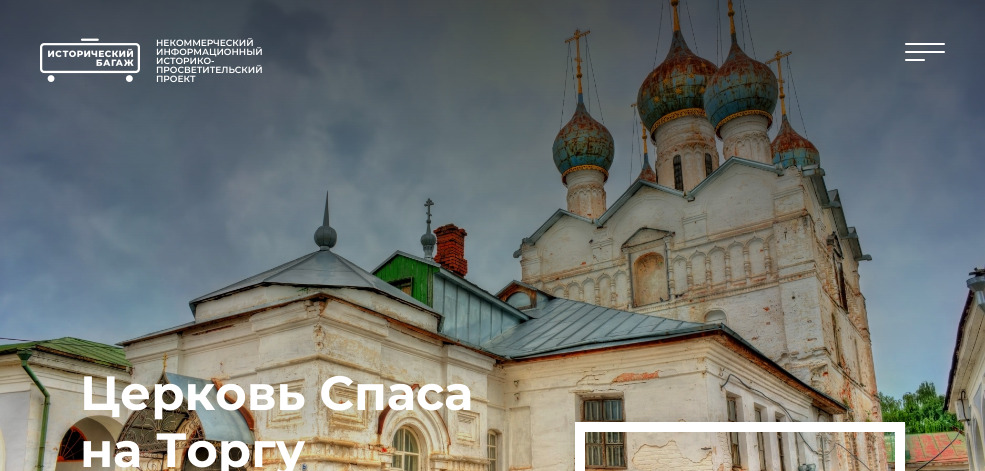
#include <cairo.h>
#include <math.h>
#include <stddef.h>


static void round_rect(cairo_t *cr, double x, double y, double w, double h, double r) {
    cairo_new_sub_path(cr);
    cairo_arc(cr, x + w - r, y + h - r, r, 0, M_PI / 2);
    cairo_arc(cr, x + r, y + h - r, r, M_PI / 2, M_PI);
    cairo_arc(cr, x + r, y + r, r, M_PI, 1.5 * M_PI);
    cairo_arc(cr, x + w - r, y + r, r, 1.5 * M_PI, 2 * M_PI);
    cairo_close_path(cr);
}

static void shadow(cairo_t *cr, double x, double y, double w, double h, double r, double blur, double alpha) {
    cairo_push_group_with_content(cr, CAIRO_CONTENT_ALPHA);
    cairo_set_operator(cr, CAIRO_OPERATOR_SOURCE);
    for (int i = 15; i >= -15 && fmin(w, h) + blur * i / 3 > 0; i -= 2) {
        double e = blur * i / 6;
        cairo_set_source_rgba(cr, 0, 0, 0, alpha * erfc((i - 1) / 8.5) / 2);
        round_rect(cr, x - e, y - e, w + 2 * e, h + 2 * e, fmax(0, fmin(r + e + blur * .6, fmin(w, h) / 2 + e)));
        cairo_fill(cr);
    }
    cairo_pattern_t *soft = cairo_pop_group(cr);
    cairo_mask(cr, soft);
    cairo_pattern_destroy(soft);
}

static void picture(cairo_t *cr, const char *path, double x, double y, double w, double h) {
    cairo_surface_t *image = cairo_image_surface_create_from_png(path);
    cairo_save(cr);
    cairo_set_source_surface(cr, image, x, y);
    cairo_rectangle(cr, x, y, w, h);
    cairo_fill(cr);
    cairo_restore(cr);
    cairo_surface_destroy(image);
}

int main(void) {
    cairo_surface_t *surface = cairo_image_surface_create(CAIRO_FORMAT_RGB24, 985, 471);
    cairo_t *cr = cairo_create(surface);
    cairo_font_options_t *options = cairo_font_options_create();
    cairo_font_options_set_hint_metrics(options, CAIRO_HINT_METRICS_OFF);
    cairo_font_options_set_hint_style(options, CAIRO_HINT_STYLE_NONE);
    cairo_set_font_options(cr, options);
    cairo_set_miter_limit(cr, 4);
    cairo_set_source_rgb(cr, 1, 1, 1);
    cairo_paint(cr);
    picture(cr, "img2.png", 0, 0, 985, 471);
    picture(cr, "img1.png", 40, 38, 100, 44);
    cairo_select_font_face(cr, "Montserrat SemiBold", CAIRO_FONT_SLANT_NORMAL, CAIRO_FONT_WEIGHT_NORMAL);
    cairo_set_font_size(cr, 9);
    cairo_set_source_rgb(cr, 1, 1, 1);
    cairo_move_to(cr, 156, 46);
    cairo_show_text(cr, "НЕКОММЕРЧЕСКИЙ");
    cairo_move_to(cr, 156, 55);
    cairo_show_text(cr, "ИНФОРМАЦИОННЫЙ");
    cairo_move_to(cr, 156, 64);
    cairo_show_text(cr, "ИСТОРИКО-");
    cairo_move_to(cr, 156, 73);
    cairo_show_text(cr, "ПРОСВЕТИТЕЛЬСКИЙ");
    cairo_move_to(cr, 156, 82);
    cairo_show_text(cr, "ПРОЕКТ");
    round_rect(cr, 905, 43, 40, 2, 1);
    cairo_fill(cr);
    round_rect(cr, 905, 51, 40, 2, 1);
    cairo_fill(cr);
    round_rect(cr, 905, 59, 20, 2, 1);
    cairo_fill(cr);
    cairo_select_font_face(cr, "Montserrat", CAIRO_FONT_SLANT_NORMAL, CAIRO_FONT_WEIGHT_BOLD);
    cairo_set_font_size(cr, 48);
    cairo_move_to(cr, 80, 410);
    cairo_show_text(cr, "Церковь Спаса");
    cairo_move_to(cr, 80, 467);
    cairo_show_text(cr, "на Торгу");
    cairo_save(cr);
    cairo_set_fill_rule(cr, CAIRO_FILL_RULE_EVEN_ODD);
    cairo_new_path(cr);
    cairo_move_to(cr, 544, 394);
    cairo_line_to(cr, 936, 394);
    cairo_line_to(cr, 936, 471);
    cairo_line_to(cr, 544, 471);
    cairo_close_path(cr);
    cairo_move_to(cr, 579, 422);
    cairo_line_to(cr, 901, 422);
    cairo_curve_to(cr, 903, 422, 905, 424, 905, 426);
    cairo_line_to(cr, 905, 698);
    cairo_curve_to(cr, 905, 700, 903, 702, 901, 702);
    cairo_line_to(cr, 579, 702);
    cairo_curve_to(cr, 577, 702, 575, 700, 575, 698);
    cairo_line_to(cr, 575, 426);
    cairo_curve_to(cr, 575, 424, 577, 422, 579, 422);
    cairo_close_path(cr);
    cairo_clip(cr);
    cairo_set_source_rgb(cr, 0, 0, 0);
    shadow(cr, 575, 425, 330, 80, 4, 10, 0.26);
    cairo_restore(cr);
    cairo_new_path(cr);
    cairo_move_to(cr, 580, 427);
    cairo_line_to(cr, 900, 427);
    cairo_line_to(cr, 900, 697);
    cairo_line_to(cr, 580, 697);
    cairo_close_path(cr);
    cairo_set_line_width(cr, 10);
    cairo_stroke(cr);
    cairo_surface_write_to_png(surface, "page.png");
    cairo_font_options_destroy(options);
    cairo_destroy(cr);
    cairo_surface_destroy(surface);
    return 0;
}
